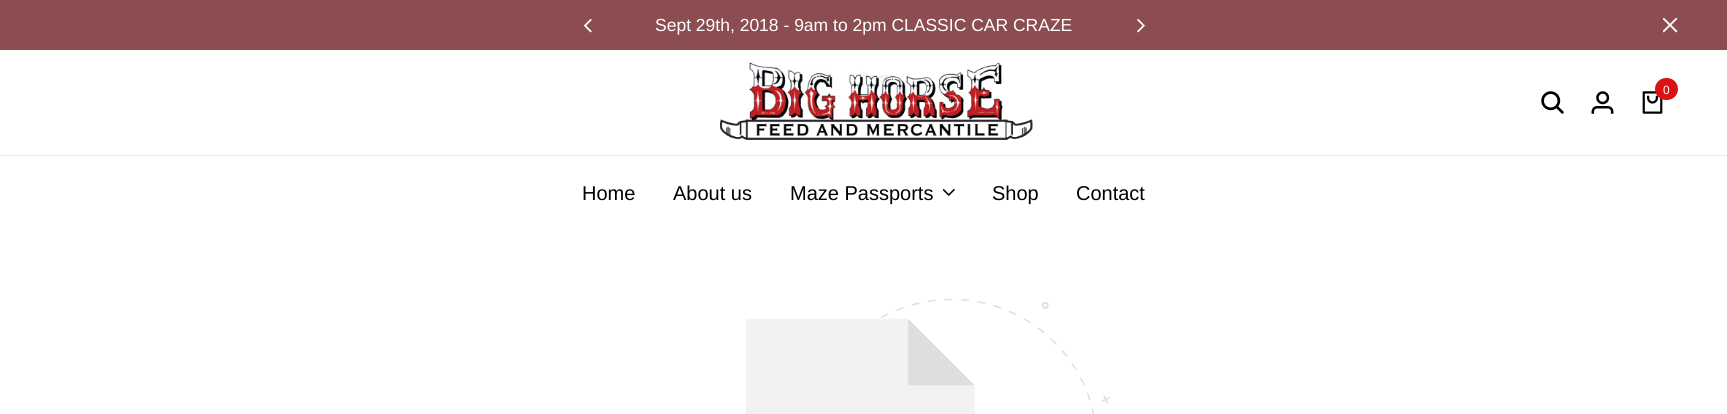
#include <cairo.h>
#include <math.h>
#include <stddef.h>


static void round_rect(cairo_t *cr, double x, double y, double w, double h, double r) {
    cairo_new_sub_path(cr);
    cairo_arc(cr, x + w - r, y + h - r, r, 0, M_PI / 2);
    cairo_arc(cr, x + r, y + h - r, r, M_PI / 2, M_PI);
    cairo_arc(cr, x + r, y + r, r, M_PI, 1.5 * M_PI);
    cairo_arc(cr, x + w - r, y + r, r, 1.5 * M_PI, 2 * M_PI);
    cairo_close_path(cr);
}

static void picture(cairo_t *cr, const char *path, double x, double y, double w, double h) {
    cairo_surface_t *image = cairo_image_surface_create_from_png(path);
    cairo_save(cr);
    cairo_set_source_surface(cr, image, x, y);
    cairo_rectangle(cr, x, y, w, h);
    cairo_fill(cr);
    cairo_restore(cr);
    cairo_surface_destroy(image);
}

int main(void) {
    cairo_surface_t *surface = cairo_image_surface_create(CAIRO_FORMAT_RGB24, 1727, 414);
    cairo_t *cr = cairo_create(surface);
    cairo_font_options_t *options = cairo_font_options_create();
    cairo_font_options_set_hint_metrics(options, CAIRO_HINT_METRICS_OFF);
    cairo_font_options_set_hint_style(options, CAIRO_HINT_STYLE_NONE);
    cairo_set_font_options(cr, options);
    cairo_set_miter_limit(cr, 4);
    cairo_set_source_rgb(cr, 1, 1, 1);
    cairo_paint(cr);
    cairo_set_source_rgb(cr, 0.545, 0.302, 0.314);
    cairo_rectangle(cr, 0, 0, 1727, 50);
    cairo_fill(cr);
    picture(cr, "img1.png", 583, 19, 9, 14);
    cairo_select_font_face(cr, "Liberation Sans", CAIRO_FONT_SLANT_NORMAL, CAIRO_FONT_WEIGHT_NORMAL);
    cairo_set_font_size(cr, 17.5);
    cairo_set_source_rgb(cr, 1, 1, 1);
    cairo_move_to(cr, 655, 31);
    cairo_show_text(cr, "Sept 29th, 2018 - 9am to 2pm CLASSIC CAR CRAZE");
    picture(cr, "img2.png", 1137, 19, 8, 14);
    picture(cr, "img3.png", 1663, 18, 15, 15);
    cairo_set_source_rgb(cr, 0.922, 0.922, 0.922);
    cairo_rectangle(cr, 0, 155, 1727, 1);
    cairo_fill(cr);
    picture(cr, "img4.png", 720, 62, 313, 78);
    picture(cr, "img5.png", 1642, 91, 21, 23);
    cairo_set_source_rgb(cr, 0.859, 0.071, 0.082);
    round_rect(cr, 1655, 78, 23, 22, 11);
    cairo_fill(cr);
    cairo_set_font_size(cr, 12);
    cairo_set_source_rgb(cr, 1, 1, 1);
    cairo_move_to(cr, 1663, 94);
    cairo_show_text(cr, "0");
    picture(cr, "img6.png", 1541, 91, 23, 23);
    picture(cr, "img7.png", 1591, 91, 23, 23);
    cairo_set_font_size(cr, 20);
    cairo_set_source_rgb(cr, 0, 0, 0);
    cairo_move_to(cr, 582, 200);
    cairo_show_text(cr, "Home");
    cairo_move_to(cr, 673, 200);
    cairo_show_text(cr, "About us");
    cairo_move_to(cr, 790, 200);
    cairo_show_text(cr, "Maze Passports");
    picture(cr, "img8.png", 943, 189, 12, 7);
    cairo_move_to(cr, 992, 200);
    cairo_show_text(cr, "Shop");
    cairo_move_to(cr, 1076, 200);
    cairo_show_text(cr, "Contact");
    picture(cr, "img9.png", 746, 299, 364, 115);
    cairo_surface_write_to_png(surface, "page.png");
    cairo_font_options_destroy(options);
    cairo_destroy(cr);
    cairo_surface_destroy(surface);
    return 0;
}
